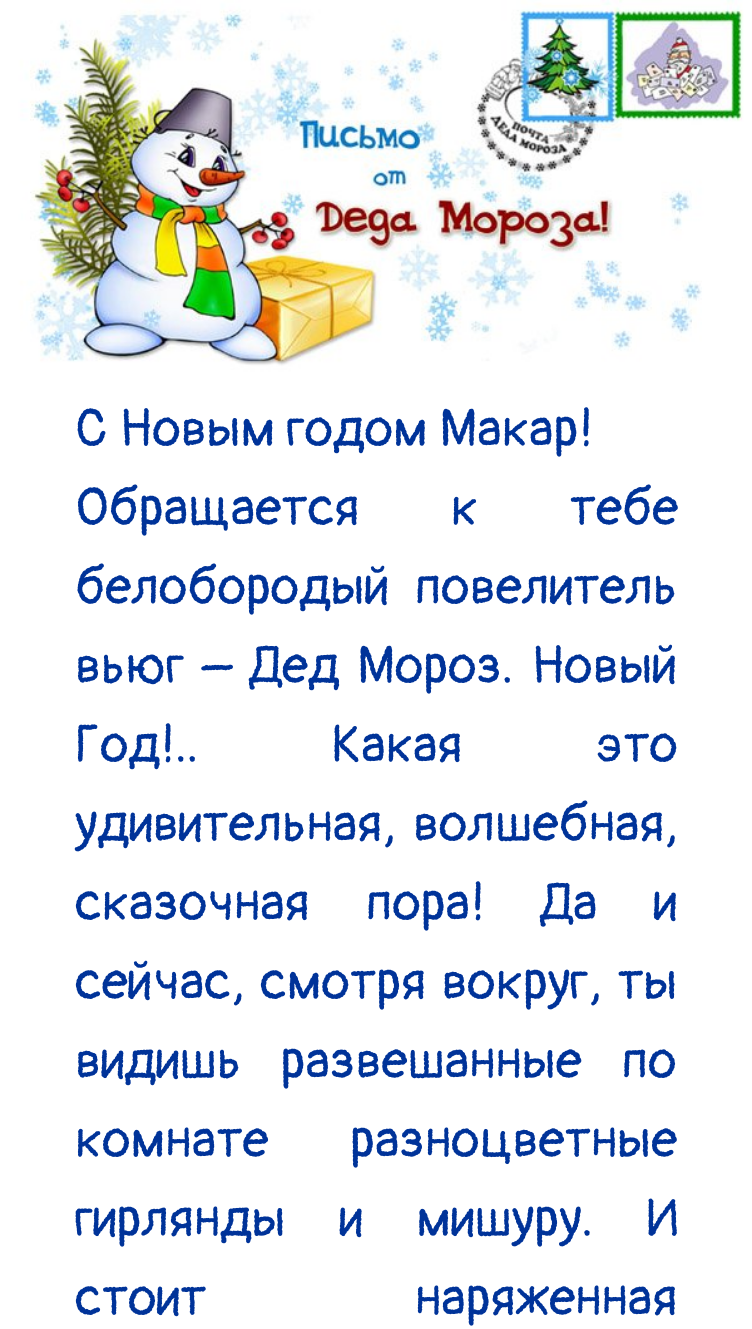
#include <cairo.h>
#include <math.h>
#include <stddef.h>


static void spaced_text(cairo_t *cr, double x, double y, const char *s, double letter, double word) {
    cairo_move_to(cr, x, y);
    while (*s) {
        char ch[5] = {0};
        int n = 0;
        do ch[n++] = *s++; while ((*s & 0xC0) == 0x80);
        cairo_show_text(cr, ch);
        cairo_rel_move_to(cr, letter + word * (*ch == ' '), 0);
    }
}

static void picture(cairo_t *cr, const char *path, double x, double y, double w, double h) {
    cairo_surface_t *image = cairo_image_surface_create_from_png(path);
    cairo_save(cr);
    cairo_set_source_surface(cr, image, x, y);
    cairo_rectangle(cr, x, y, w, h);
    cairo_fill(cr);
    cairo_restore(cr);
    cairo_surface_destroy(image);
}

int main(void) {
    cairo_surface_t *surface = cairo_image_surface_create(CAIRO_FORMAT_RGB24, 752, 1329);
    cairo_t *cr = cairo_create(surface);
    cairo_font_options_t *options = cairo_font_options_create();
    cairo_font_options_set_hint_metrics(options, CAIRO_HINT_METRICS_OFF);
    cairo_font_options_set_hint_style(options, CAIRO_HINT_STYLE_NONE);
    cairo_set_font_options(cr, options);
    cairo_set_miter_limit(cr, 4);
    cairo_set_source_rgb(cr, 1, 1, 1);
    cairo_paint(cr);
    picture(cr, "img1.png", 0, 0, 752, 376);
    cairo_select_font_face(cr, "Pangolin", CAIRO_FONT_SLANT_NORMAL, CAIRO_FONT_WEIGHT_NORMAL);
    cairo_set_font_size(cr, 52.75);
    cairo_set_source_rgb(cr, 0, 0.2, 0.6);
    cairo_move_to(cr, 75, 446);
    cairo_show_text(cr, "С Новым годом Макар!");
    spaced_text(cr, 75, 525, "Обращается к тебе", 0, 80);
    spaced_text(cr, 75, 604, "белобородый повелитель", 0, 13);
    spaced_text(cr, 75, 683, "вьюг – Дед Мороз. Новый", 0, 6);
    spaced_text(cr, 75, 762, "Год!.. Какая это", 0, 121);
    spaced_text(cr, 75, 841, "удивительная, волшебная,", 0, 6);
    spaced_text(cr, 75, 920, "сказочная пора! Да и", 0, 44.5);
    spaced_text(cr, 75, 999, "сейчас, смотря вокруг, ты", 0, 4);
    spaced_text(cr, 75, 1078, "видишь развешанные по", 0, 28);
    spaced_text(cr, 75, 1157, "комнате разноцветные", 0, 70);
    spaced_text(cr, 75, 1236, "гирлянды и мишуру. И", 0, 42);
    spaced_text(cr, 75, 1315, "стоит наряженная", 0, 197);
    cairo_surface_write_to_png(surface, "page.png");
    cairo_font_options_destroy(options);
    cairo_destroy(cr);
    cairo_surface_destroy(surface);
    return 0;
}
